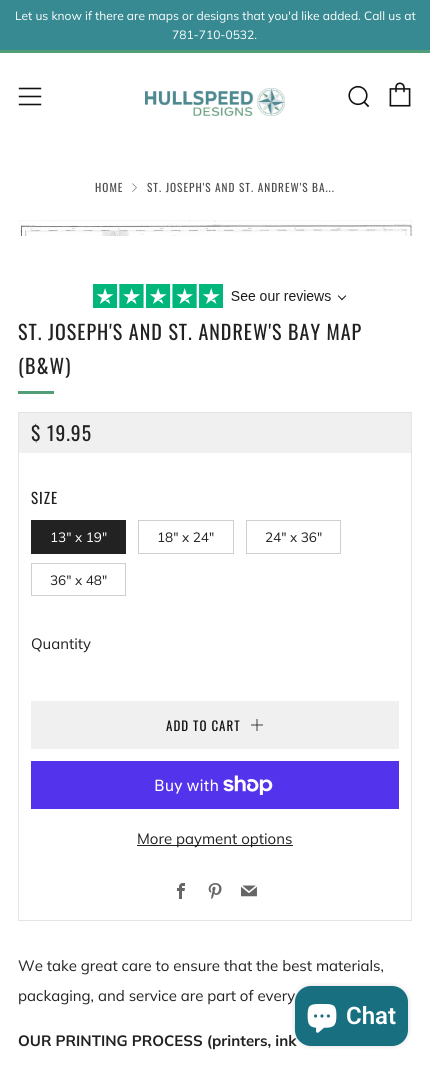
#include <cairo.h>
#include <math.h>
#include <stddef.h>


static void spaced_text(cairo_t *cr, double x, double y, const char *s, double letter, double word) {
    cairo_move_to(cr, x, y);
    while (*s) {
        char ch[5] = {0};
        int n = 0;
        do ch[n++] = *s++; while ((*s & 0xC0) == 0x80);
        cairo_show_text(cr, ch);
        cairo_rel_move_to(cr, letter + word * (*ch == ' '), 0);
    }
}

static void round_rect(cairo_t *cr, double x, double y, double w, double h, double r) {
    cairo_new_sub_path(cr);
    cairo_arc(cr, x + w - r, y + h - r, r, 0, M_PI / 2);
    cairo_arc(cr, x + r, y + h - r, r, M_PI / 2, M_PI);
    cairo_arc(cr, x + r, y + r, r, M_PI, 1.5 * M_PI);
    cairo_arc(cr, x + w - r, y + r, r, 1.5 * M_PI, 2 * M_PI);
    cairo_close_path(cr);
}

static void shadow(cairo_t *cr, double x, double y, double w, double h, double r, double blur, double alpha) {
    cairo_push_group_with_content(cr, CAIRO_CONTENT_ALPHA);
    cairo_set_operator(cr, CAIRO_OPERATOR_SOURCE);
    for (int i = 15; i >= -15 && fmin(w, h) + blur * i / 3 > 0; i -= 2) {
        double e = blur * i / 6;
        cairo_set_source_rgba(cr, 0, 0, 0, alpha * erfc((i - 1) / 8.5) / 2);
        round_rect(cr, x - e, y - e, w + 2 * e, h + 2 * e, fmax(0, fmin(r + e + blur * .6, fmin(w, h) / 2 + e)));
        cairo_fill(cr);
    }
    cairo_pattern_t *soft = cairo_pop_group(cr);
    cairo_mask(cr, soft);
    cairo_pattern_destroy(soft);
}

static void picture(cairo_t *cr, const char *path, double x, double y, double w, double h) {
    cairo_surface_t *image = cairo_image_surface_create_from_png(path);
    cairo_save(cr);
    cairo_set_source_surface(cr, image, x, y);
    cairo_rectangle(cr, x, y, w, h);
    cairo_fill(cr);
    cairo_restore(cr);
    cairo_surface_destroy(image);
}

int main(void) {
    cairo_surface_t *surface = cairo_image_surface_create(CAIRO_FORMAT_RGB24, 430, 1067);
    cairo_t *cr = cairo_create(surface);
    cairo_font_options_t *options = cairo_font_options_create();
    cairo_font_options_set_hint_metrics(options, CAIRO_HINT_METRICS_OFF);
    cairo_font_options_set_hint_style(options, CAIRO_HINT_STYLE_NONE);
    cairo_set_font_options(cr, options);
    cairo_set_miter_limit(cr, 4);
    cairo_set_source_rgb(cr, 1, 1, 1);
    cairo_paint(cr);
    cairo_set_source_rgb(cr, 0.22, 0.541, 0.573);
    cairo_rectangle(cr, 0, 0, 430, 50);
    cairo_fill(cr);
    cairo_select_font_face(cr, "Muli", CAIRO_FONT_SLANT_NORMAL, CAIRO_FONT_WEIGHT_NORMAL);
    cairo_set_font_size(cr, 12);
    cairo_set_source_rgb(cr, 1, 1, 1);
    cairo_move_to(cr, 15, 20);
    cairo_show_text(cr, "Let us know if there are maps or designs that you'd like added. Call us at");
    cairo_move_to(cr, 172, 39);
    cairo_show_text(cr, "781-710-0532.");
    cairo_set_source_rgb(cr, 0.322, 0.62, 0.475);
    cairo_rectangle(cr, 0, 50, 430, 3);
    cairo_fill(cr);
    picture(cr, "img1.png", 18, 87, 24, 19);
    picture(cr, "img2.png", 145, 88, 140, 28);
    picture(cr, "img3.png", 348, 85, 22, 23);
    picture(cr, "img4.png", 389, 82, 22, 25);
    cairo_select_font_face(cr, "Oswald", CAIRO_FONT_SLANT_NORMAL, CAIRO_FONT_WEIGHT_NORMAL);
    cairo_set_font_size(cr, 11.25);
    cairo_set_source_rgb(cr, 0.302, 0.302, 0.302);
    spaced_text(cr, 95, 192, "HOME", 1, 0);
    picture(cr, "img5.png", 132, 183, 5, 9);
    spaced_text(cr, 147, 192, "ST. JOSEPH'S AND ST. ANDREW'S BA...", 1, 0);
    picture(cr, "img6.png", 18, 220, 394, 16);
    picture(cr, "img7.png", 93, 284, 254, 24);
    cairo_set_font_size(cr, 20);
    cairo_set_source_rgb(cr, 0.129, 0.129, 0.129);
    spaced_text(cr, 18, 340, "ST. JOSEPH'S AND ST. ANDREW'S BAY MAP", 1, 0);
    spaced_text(cr, 18, 374, "(B&W)", 1, 0);
    cairo_set_source_rgb(cr, 0.322, 0.62, 0.475);
    cairo_rectangle(cr, 18, 391, 36, 3);
    cairo_fill(cr);
    cairo_rectangle(cr, 18.5, 412.5, 393, 508);
    cairo_set_source_rgb(cr, 0.894, 0.894, 0.894);
    cairo_set_line_width(cr, 1);
    cairo_stroke(cr);
    cairo_set_source_rgb(cr, 0.941, 0.941, 0.941);
    cairo_rectangle(cr, 19, 413, 392, 40);
    cairo_fill(cr);
    cairo_set_font_size(cr, 19.5);
    cairo_set_source_rgb(cr, 0.129, 0.129, 0.129);
    spaced_text(cr, 31, 441, "$ 19.95", 1, 0);
    cairo_set_font_size(cr, 15);
    spaced_text(cr, 31, 504, "SIZE", 1, 0);
    cairo_set_source_rgb(cr, 0.133, 0.133, 0.133);
    cairo_rectangle(cr, 31, 520, 95, 34);
    cairo_fill(cr);
    cairo_select_font_face(cr, "Muli", CAIRO_FONT_SLANT_NORMAL, CAIRO_FONT_WEIGHT_NORMAL);
    cairo_set_font_size(cr, 13.5);
    cairo_set_source_rgb(cr, 1, 1, 1);
    cairo_move_to(cr, 50, 542);
    cairo_show_text(cr, "13\" x 19\"");
    cairo_rectangle(cr, 138.5, 520.5, 95, 33);
    cairo_set_source_rgb(cr, 0.812, 0.812, 0.812);
    cairo_stroke(cr);
    cairo_set_source_rgb(cr, 0.129, 0.129, 0.129);
    cairo_move_to(cr, 157, 542);
    cairo_show_text(cr, "18\" x 24\"");
    cairo_rectangle(cr, 246.5, 520.5, 94, 33);
    cairo_set_source_rgb(cr, 0.812, 0.812, 0.812);
    cairo_stroke(cr);
    cairo_set_source_rgb(cr, 0.129, 0.129, 0.129);
    cairo_move_to(cr, 265, 542);
    cairo_show_text(cr, "24\" x 36\"");
    cairo_rectangle(cr, 31.5, 563.5, 94, 32);
    cairo_set_source_rgb(cr, 0.812, 0.812, 0.812);
    cairo_stroke(cr);
    cairo_set_source_rgb(cr, 0.129, 0.129, 0.129);
    cairo_move_to(cr, 50, 585);
    cairo_show_text(cr, "36\" x 48\"");
    cairo_set_font_size(cr, 15);
    cairo_move_to(cr, 31, 649);
    cairo_show_text(cr, "Quantity");
    cairo_set_source_rgb(cr, 0.941, 0.941, 0.941);
    cairo_rectangle(cr, 31, 701, 368, 48);
    cairo_fill(cr);
    cairo_select_font_face(cr, "Oswald", CAIRO_FONT_SLANT_NORMAL, CAIRO_FONT_WEIGHT_NORMAL);
    cairo_set_font_size(cr, 13);
    cairo_set_source_rgb(cr, 0.067, 0.067, 0.067);
    spaced_text(cr, 166, 731, "ADD TO CART", 1, 0);
    picture(cr, "img8.png", 251, 719, 12, 12);
    cairo_set_source_rgb(cr, 0.329, 0.2, 0.922);
    cairo_rectangle(cr, 31, 761, 368, 48);
    cairo_fill(cr);
    cairo_select_font_face(cr, "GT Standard", CAIRO_FONT_SLANT_NORMAL, CAIRO_FONT_WEIGHT_NORMAL);
    cairo_set_font_size(cr, 16);
    cairo_set_source_rgb(cr, 1, 1, 1);
    cairo_move_to(cr, 154, 791);
    cairo_show_text(cr, "Buy with");
    picture(cr, "img9.png", 223, 775, 50, 20);
    cairo_set_source_rgb(cr, 0.129, 0.129, 0.129);
    cairo_rectangle(cr, 137, 845, 156, 1);
    cairo_fill(cr);
    cairo_select_font_face(cr, "Muli", CAIRO_FONT_SLANT_NORMAL, CAIRO_FONT_WEIGHT_NORMAL);
    cairo_set_font_size(cr, 15);
    cairo_move_to(cr, 137, 844);
    cairo_show_text(cr, "More payment options");
    picture(cr, "img10.png", 177, 883, 8, 16);
    picture(cr, "img11.png", 208, 883, 14, 16);
    picture(cr, "img12.png", 241, 885, 16, 12);
    cairo_move_to(cr, 18, 971);
    cairo_show_text(cr, "We take great care to ensure that the best materials,");
    cairo_move_to(cr, 18, 1001);
    cairo_show_text(cr, "packaging, and service are part of every");
    cairo_select_font_face(cr, "Muli", CAIRO_FONT_SLANT_NORMAL, CAIRO_FONT_WEIGHT_BOLD);
    cairo_move_to(cr, 18, 1046);
    cairo_show_text(cr, "OUR PRINTING PROCESS (printers, ink");
    cairo_set_source_rgb(cr, 0, 0, 0);
    shadow(cr, 295, 986, 113, 60, 16, 2.5, 0.15);
    cairo_set_source_rgb(cr, 0.09, 0.435, 0.502);
    round_rect(cr, 295, 986, 113, 60, 16);
    cairo_fill(cr);
    picture(cr, "img13.png", 307, 1004, 30, 29);
    cairo_select_font_face(cr, "Roboto SemiBold", CAIRO_FONT_SLANT_NORMAL, CAIRO_FONT_WEIGHT_NORMAL);
    cairo_set_font_size(cr, 24);
    cairo_set_source_rgb(cr, 1, 1, 1);
    cairo_move_to(cr, 346, 1024);
    cairo_show_text(cr, "Chat");
    cairo_surface_write_to_png(surface, "page.png");
    cairo_font_options_destroy(options);
    cairo_destroy(cr);
    cairo_surface_destroy(surface);
    return 0;
}
